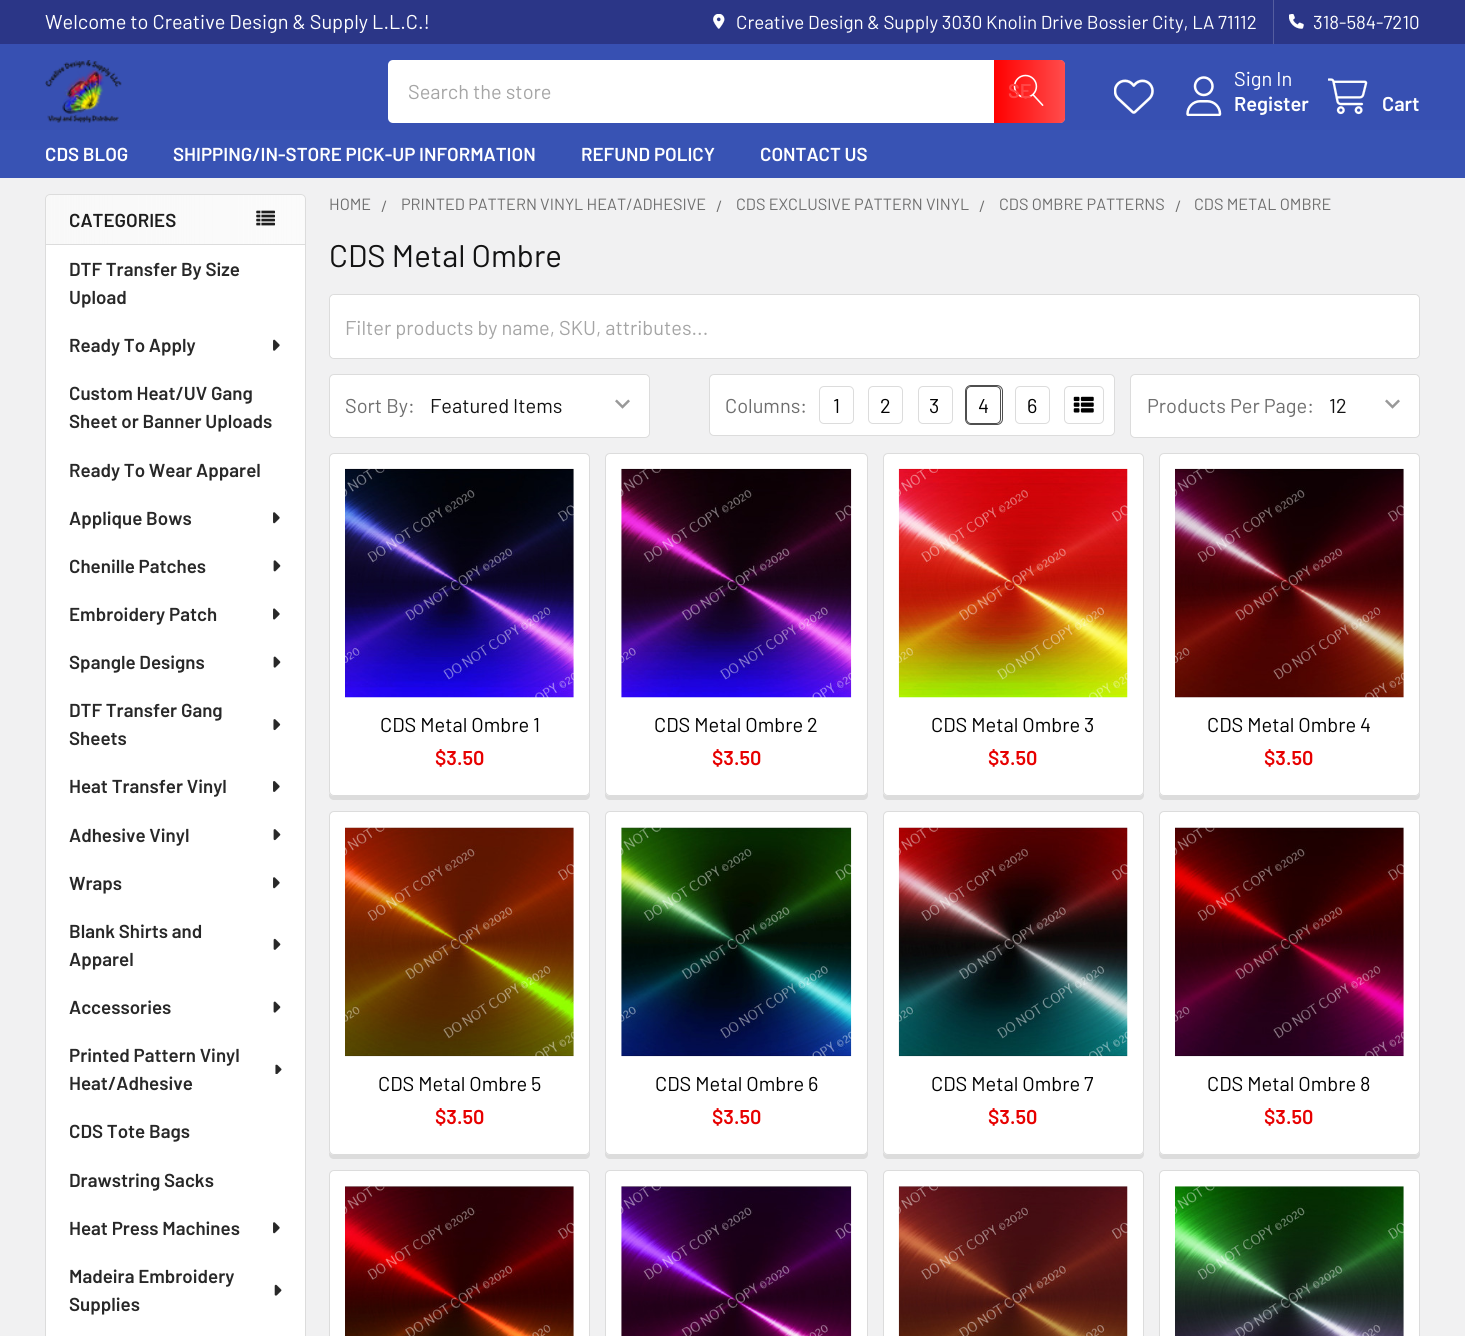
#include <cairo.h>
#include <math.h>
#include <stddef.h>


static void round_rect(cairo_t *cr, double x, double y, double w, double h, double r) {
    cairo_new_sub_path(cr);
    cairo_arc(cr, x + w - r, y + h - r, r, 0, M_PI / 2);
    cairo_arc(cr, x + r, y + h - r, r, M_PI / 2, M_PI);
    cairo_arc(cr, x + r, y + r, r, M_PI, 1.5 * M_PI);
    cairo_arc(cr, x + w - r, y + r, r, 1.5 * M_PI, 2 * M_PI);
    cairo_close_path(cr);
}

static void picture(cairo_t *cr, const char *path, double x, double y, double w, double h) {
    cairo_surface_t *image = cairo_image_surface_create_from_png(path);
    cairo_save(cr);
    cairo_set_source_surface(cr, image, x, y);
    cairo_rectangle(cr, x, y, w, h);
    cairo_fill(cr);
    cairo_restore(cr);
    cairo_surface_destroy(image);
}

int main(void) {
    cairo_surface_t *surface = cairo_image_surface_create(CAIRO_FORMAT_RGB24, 1465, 1336);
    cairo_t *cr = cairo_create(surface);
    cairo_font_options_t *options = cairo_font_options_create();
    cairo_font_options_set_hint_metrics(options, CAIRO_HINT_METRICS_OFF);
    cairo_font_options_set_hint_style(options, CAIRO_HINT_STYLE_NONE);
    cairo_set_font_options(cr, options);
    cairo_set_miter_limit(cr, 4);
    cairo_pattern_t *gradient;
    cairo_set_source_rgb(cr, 0.945, 0.945, 0.949);
    cairo_paint(cr);
    cairo_set_source_rgb(cr, 0.216, 0.314, 0.698);
    cairo_rectangle(cr, 0, 45, 1465, 85);
    cairo_fill(cr);
    cairo_set_source_rgb(cr, 0.169, 0.212, 0.529);
    cairo_rectangle(cr, 0, 0, 1465, 44);
    cairo_fill(cr);
    cairo_set_source_rgb(cr, 0.22, 0.31, 0.698);
    cairo_rectangle(cr, 0, 44, 1465, 1);
    cairo_fill(cr);
    cairo_select_font_face(cr, "Barlow", CAIRO_FONT_SLANT_NORMAL, CAIRO_FONT_WEIGHT_NORMAL);
    cairo_set_font_size(cr, 20);
    cairo_set_source_rgb(cr, 1, 1, 1);
    cairo_move_to(cr, 45, 29);
    cairo_show_text(cr, "Welcome to Creative Design & Supply L.L.C.!");
    picture(cr, "img1.png", 713, 14, 12, 15);
    cairo_set_font_size(cr, 18.75);
    cairo_move_to(cr, 736, 29);
    cairo_show_text(cr, "Creative Design & Supply 3030 Knolin Drive Bossier City, LA 71112");
    cairo_set_source_rgb(cr, 0.333, 0.369, 0.624);
    cairo_rectangle(cr, 1273, 0, 1, 44);
    cairo_fill(cr);
    picture(cr, "img2.png", 1289, 14, 15, 15);
    cairo_set_source_rgb(cr, 1, 1, 1);
    cairo_move_to(cr, 1313, 29);
    cairo_show_text(cr, "318-584-7210");
    picture(cr, "img3.png", 45, 60, 77, 63);
    round_rect(cr, 388, 60, 677, 63, 5);
    cairo_fill(cr);
    gradient = cairo_pattern_create_linear(994, 91, 1065, 91);
    cairo_pattern_add_color_stop_rgba(gradient, 0, 1, 0, 0, 1);
    cairo_pattern_add_color_stop_rgba(gradient, 1, 1, 0, 0, 0.7);
    cairo_set_source(cr, gradient);
    cairo_pattern_destroy(gradient);
    cairo_new_path(cr);
    cairo_move_to(cr, 994, 60);
    cairo_line_to(cr, 1060, 60);
    cairo_curve_to(cr, 1063, 60, 1065, 62, 1065, 65);
    cairo_line_to(cr, 1065, 118);
    cairo_curve_to(cr, 1065, 121, 1063, 123, 1060, 123);
    cairo_line_to(cr, 994, 123);
    cairo_close_path(cr);
    cairo_fill(cr);
    picture(cr, "img4.png", 1013, 74, 31, 32);
    cairo_set_font_size(cr, 20);
    cairo_set_source_rgb(cr, 0.647, 0.647, 0.647);
    cairo_move_to(cr, 408, 99);
    cairo_show_text(cr, "Search the store");
    cairo_select_font_face(cr, "Barlow SemiBold", CAIRO_FONT_SLANT_NORMAL, CAIRO_FONT_WEIGHT_NORMAL);
    cairo_set_source_rgb(cr, 1, 0.275, 0.275);
    cairo_move_to(cr, 1008, 98);
    cairo_show_text(cr, "SE");
    picture(cr, "img5.png", 1114, 79, 40, 35);
    picture(cr, "img6.png", 1186, 76, 36, 40);
    cairo_select_font_face(cr, "Barlow", CAIRO_FONT_SLANT_NORMAL, CAIRO_FONT_WEIGHT_NORMAL);
    cairo_set_source_rgb(cr, 1, 1, 1);
    cairo_move_to(cr, 1234, 86);
    cairo_show_text(cr, "Sign In");
    cairo_select_font_face(cr, "Barlow SemiBold", CAIRO_FONT_SLANT_NORMAL, CAIRO_FONT_WEIGHT_NORMAL);
    cairo_move_to(cr, 1234, 111);
    cairo_show_text(cr, "Register");
    picture(cr, "img7.png", 1328, 78, 40, 37);
    cairo_move_to(cr, 1382, 111);
    cairo_show_text(cr, "Cart");
    cairo_set_source_rgb(cr, 0.22, 0.325, 0.706);
    cairo_rectangle(cr, 0, 130, 1465, 48);
    cairo_fill(cr);
    cairo_set_font_size(cr, 18.75);
    cairo_set_source_rgb(cr, 1, 1, 1);
    cairo_move_to(cr, 45, 161);
    cairo_show_text(cr, "CDS BLOG");
    cairo_move_to(cr, 173, 161);
    cairo_show_text(cr, "SHIPPING/IN-STORE PICK-UP INFORMATION");
    cairo_move_to(cr, 581, 161);
    cairo_show_text(cr, "REFUND POLICY");
    cairo_move_to(cr, 760, 161);
    cairo_show_text(cr, "CONTACT US");
    round_rect(cr, 45, 194, 261, 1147, 5);
    cairo_fill(cr);
    gradient = cairo_pattern_create_linear(45, 1034, 306, 1034);
    cairo_pattern_add_color_stop_rgba(gradient, 0, 0.973, 0.973, 0.973, 1);
    cairo_pattern_add_color_stop_rgba(gradient, 1, 0.973, 0.973, 0.973, 0.6);
    cairo_set_source(cr, gradient);
    cairo_pattern_destroy(gradient);
    round_rect(cr, 45, 194, 261, 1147, 5);
    cairo_fill(cr);
    cairo_new_path(cr);
    cairo_move_to(cr, 50, 194.5);
    cairo_line_to(cr, 301, 194.5);
    cairo_curve_to(cr, 303.5, 194.5, 305.5, 196.5, 305.5, 199);
    cairo_line_to(cr, 305.5, 244.5);
    cairo_line_to(cr, 45.5, 244.5);
    cairo_line_to(cr, 45.5, 199);
    cairo_curve_to(cr, 45.5, 196.5, 47.5, 194.5, 50, 194.5);
    cairo_close_path(cr);
    cairo_set_source_rgb(cr, 0.863, 0.863, 0.863);
    cairo_set_line_width(cr, 1);
    cairo_stroke(cr);
    cairo_set_source_rgb(cr, 0.114, 0.114, 0.114);
    cairo_move_to(cr, 69, 227);
    cairo_show_text(cr, "CATEGORIES");
    picture(cr, "img8.png", 256, 210, 19, 16);
    cairo_set_source_rgb(cr, 1, 1, 1);
    cairo_rectangle(cr, 46, 245, 259, 1091);
    cairo_fill(cr);
    cairo_set_source_rgb(cr, 0.863, 0.863, 0.863);
    cairo_set_fill_rule(cr, CAIRO_FILL_RULE_EVEN_ODD);
    cairo_new_path(cr);
    cairo_move_to(cr, 45, 245);
    cairo_line_to(cr, 306, 245);
    cairo_line_to(cr, 306, 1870);
    cairo_curve_to(cr, 306, 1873, 304, 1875, 301, 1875);
    cairo_line_to(cr, 50, 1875);
    cairo_curve_to(cr, 47, 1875, 45, 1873, 45, 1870);
    cairo_close_path(cr);
    cairo_move_to(cr, 46, 245);
    cairo_line_to(cr, 305, 245);
    cairo_line_to(cr, 305, 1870);
    cairo_curve_to(cr, 305, 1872, 303, 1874, 301, 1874);
    cairo_line_to(cr, 50, 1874);
    cairo_curve_to(cr, 48, 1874, 46, 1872, 46, 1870);
    cairo_close_path(cr);
    cairo_fill(cr);
    cairo_set_source_rgb(cr, 0.157, 0.157, 0.157);
    cairo_move_to(cr, 69, 276);
    cairo_show_text(cr, "DTF Transfer By Size");
    cairo_move_to(cr, 69, 304);
    cairo_show_text(cr, "Upload");
    cairo_move_to(cr, 69, 352);
    cairo_show_text(cr, "Ready To Apply");
    picture(cr, "img9.png", 273, 339, 7, 12);
    cairo_move_to(cr, 69, 400);
    cairo_show_text(cr, "Custom Heat/UV Gang");
    cairo_move_to(cr, 69, 428);
    cairo_show_text(cr, "Sheet or Banner Uploads");
    cairo_move_to(cr, 69, 477);
    cairo_show_text(cr, "Ready To Wear Apparel");
    cairo_move_to(cr, 69, 525);
    cairo_show_text(cr, "Applique Bows");
    picture(cr, "img10.png", 273, 512, 7, 12);
    cairo_move_to(cr, 69, 573);
    cairo_show_text(cr, "Chenille Patches");
    picture(cr, "img11.png", 273, 560, 8, 12);
    cairo_move_to(cr, 69, 621);
    cairo_show_text(cr, "Embroidery Patch");
    picture(cr, "img12.png", 273, 608, 7, 12);
    cairo_move_to(cr, 69, 669);
    cairo_show_text(cr, "Spangle Designs");
    picture(cr, "img13.png", 273, 656, 8, 12);
    cairo_move_to(cr, 69, 717);
    cairo_show_text(cr, "DTF Transfer Gang");
    picture(cr, "img14.png", 273, 719, 8, 12);
    cairo_move_to(cr, 69, 745);
    cairo_show_text(cr, "Sheets");
    cairo_move_to(cr, 69, 793);
    cairo_show_text(cr, "Heat Transfer Vinyl");
    picture(cr, "img15.png", 273, 781, 7, 11);
    cairo_move_to(cr, 69, 842);
    cairo_show_text(cr, "Adhesive Vinyl");
    picture(cr, "img16.png", 273, 829, 8, 12);
    cairo_move_to(cr, 69, 890);
    cairo_show_text(cr, "Wraps");
    picture(cr, "img10.png", 273, 877, 7, 12);
    cairo_move_to(cr, 69, 938);
    cairo_show_text(cr, "Blank Shirts and");
    picture(cr, "img17.png", 273, 938, 8, 12);
    cairo_move_to(cr, 69, 966);
    cairo_show_text(cr, "Apparel");
    cairo_move_to(cr, 69, 1014);
    cairo_show_text(cr, "Accessories");
    picture(cr, "img13.png", 273, 1001, 8, 12);
    cairo_move_to(cr, 69, 1062);
    cairo_show_text(cr, "Printed Pattern Vinyl");
    picture(cr, "img18.png", 275, 1064, 7, 10);
    cairo_move_to(cr, 69, 1090);
    cairo_show_text(cr, "Heat/Adhesive");
    cairo_move_to(cr, 69, 1138);
    cairo_show_text(cr, "CDS Tote Bags");
    cairo_move_to(cr, 69, 1187);
    cairo_show_text(cr, "Drawstring Sacks");
    cairo_move_to(cr, 69, 1235);
    cairo_show_text(cr, "Heat Press Machines");
    picture(cr, "img10.png", 273, 1222, 7, 12);
    cairo_move_to(cr, 69, 1283);
    cairo_show_text(cr, "Madeira Embroidery");
    picture(cr, "img19.png", 274, 1284, 8, 12);
    cairo_move_to(cr, 69, 1311);
    cairo_show_text(cr, "Supplies");
    cairo_select_font_face(cr, "Barlow", CAIRO_FONT_SLANT_NORMAL, CAIRO_FONT_WEIGHT_NORMAL);
    cairo_set_font_size(cr, 16.25);
    cairo_set_source_rgb(cr, 0.431, 0.431, 0.431);
    cairo_move_to(cr, 329, 210);
    cairo_show_text(cr, "HOME");
    cairo_move_to(cr, 381, 212);
    cairo_show_text(cr, "/");
    cairo_move_to(cr, 401, 210);
    cairo_show_text(cr, "PRINTED PATTERN VINYL HEAT/ADHESIVE");
    cairo_move_to(cr, 716, 212);
    cairo_show_text(cr, "/");
    cairo_move_to(cr, 736, 210);
    cairo_show_text(cr, "CDS EXCLUSIVE PATTERN VINYL");
    cairo_move_to(cr, 979, 212);
    cairo_show_text(cr, "/");
    cairo_move_to(cr, 999, 210);
    cairo_show_text(cr, "CDS OMBRE PATTERNS");
    cairo_move_to(cr, 1175, 212);
    cairo_show_text(cr, "/");
    cairo_move_to(cr, 1194, 210);
    cairo_show_text(cr, "CDS METAL OMBRE");
    cairo_set_font_size(cr, 31.25);
    cairo_set_source_rgb(cr, 0.075, 0.075, 0.075);
    cairo_move_to(cr, 329, 267);
    cairo_show_text(cr, "CDS Metal Ombre");
    cairo_set_source_rgb(cr, 1, 1, 1);
    round_rect(cr, 329.5, 294.5, 1090, 64, 4.5);
    cairo_fill_preserve(cr);
    cairo_set_source_rgb(cr, 0.863, 0.863, 0.863);
    cairo_stroke(cr);
    cairo_set_source_rgb(cr, 1, 1, 1);
    round_rect(cr, 330, 295, 1089, 63, 5);
    cairo_fill(cr);
    cairo_set_font_size(cr, 20);
    cairo_set_source_rgb(cr, 0.647, 0.647, 0.647);
    cairo_move_to(cr, 345, 335);
    cairo_show_text(cr, "Filter products by name, SKU, attributes...");
    cairo_set_source_rgb(cr, 1, 1, 1);
    round_rect(cr, 329.5, 374.5, 320, 63, 4.5);
    cairo_fill_preserve(cr);
    cairo_set_source_rgb(cr, 0.863, 0.863, 0.863);
    cairo_stroke(cr);
    cairo_set_source_rgb(cr, 0.431, 0.431, 0.431);
    cairo_move_to(cr, 345, 413);
    cairo_show_text(cr, "Sort By:");
    cairo_set_source_rgb(cr, 1, 1, 1);
    round_rect(cr, 426, 375, 223, 60, 5);
    cairo_fill(cr);
    picture(cr, "img20.png", 615, 399, 15, 10);
    cairo_set_source_rgb(cr, 0.075, 0.075, 0.075);
    cairo_move_to(cr, 430, 413);
    cairo_show_text(cr, "Featured Items");
    cairo_set_source_rgb(cr, 1, 1, 1);
    round_rect(cr, 709.5, 374.5, 405, 61, 4.5);
    cairo_fill_preserve(cr);
    cairo_set_source_rgb(cr, 0.863, 0.863, 0.863);
    cairo_stroke(cr);
    cairo_set_source_rgb(cr, 0.431, 0.431, 0.431);
    cairo_move_to(cr, 725, 413);
    cairo_show_text(cr, "Columns:");
    round_rect(cr, 819.5, 386.5, 34, 37, 4.5);
    cairo_set_source_rgb(cr, 0.863, 0.863, 0.863);
    cairo_stroke(cr);
    cairo_set_source_rgb(cr, 0, 0, 0);
    cairo_move_to(cr, 833, 413);
    cairo_show_text(cr, "1");
    round_rect(cr, 868.5, 386.5, 34, 37, 4.5);
    cairo_set_source_rgb(cr, 0.863, 0.863, 0.863);
    cairo_stroke(cr);
    cairo_set_source_rgb(cr, 0, 0, 0);
    cairo_move_to(cr, 880, 413);
    cairo_show_text(cr, "2");
    round_rect(cr, 918.5, 386.5, 34, 37, 4.5);
    cairo_set_source_rgb(cr, 0.863, 0.863, 0.863);
    cairo_stroke(cr);
    cairo_set_source_rgb(cr, 0, 0, 0);
    cairo_move_to(cr, 929, 413);
    cairo_show_text(cr, "3");
    round_rect(cr, 965.5, 385.5, 37, 39, 5.5);
    cairo_set_source_rgb(cr, 0.31, 0.31, 0.31);
    cairo_stroke(cr);
    round_rect(cr, 966.5, 386.5, 34, 37, 4.5);
    cairo_stroke(cr);
    cairo_set_source_rgb(cr, 0, 0, 0);
    cairo_move_to(cr, 978, 413);
    cairo_show_text(cr, "4");
    round_rect(cr, 1015.5, 386.5, 34, 37, 4.5);
    cairo_set_source_rgb(cr, 0.863, 0.863, 0.863);
    cairo_stroke(cr);
    cairo_set_source_rgb(cr, 0, 0, 0);
    cairo_move_to(cr, 1027, 413);
    cairo_show_text(cr, "6");
    round_rect(cr, 1064.5, 386.5, 39, 37, 4.5);
    cairo_set_source_rgb(cr, 0.863, 0.863, 0.863);
    cairo_stroke(cr);
    picture(cr, "img21.png", 1073, 396, 21, 17);
    cairo_set_source_rgb(cr, 1, 1, 1);
    round_rect(cr, 1130.5, 374.5, 289, 63, 4.5);
    cairo_fill_preserve(cr);
    cairo_set_source_rgb(cr, 0.863, 0.863, 0.863);
    cairo_stroke(cr);
    cairo_set_source_rgb(cr, 0.431, 0.431, 0.431);
    cairo_move_to(cr, 1147, 413);
    cairo_show_text(cr, "Products Per Page:");
    cairo_set_source_rgb(cr, 1, 1, 1);
    round_rect(cr, 1325, 375, 94, 60, 5);
    cairo_fill(cr);
    picture(cr, "img20.png", 1385, 399, 15, 10);
    cairo_set_source_rgb(cr, 0.075, 0.075, 0.075);
    cairo_move_to(cr, 1329, 413);
    cairo_show_text(cr, "12");
    cairo_set_source_rgb(cr, 0.863, 0.863, 0.863);
    cairo_set_fill_rule(cr, CAIRO_FILL_RULE_WINDING);
    cairo_new_path(cr);
    cairo_move_to(cr, 329, 793);
    cairo_line_to(cr, 329, 795);
    cairo_curve_to(cr, 329, 798, 331, 800, 334, 800);
    cairo_line_to(cr, 585, 800);
    cairo_curve_to(cr, 588, 800, 590, 798, 590, 795);
    cairo_line_to(cr, 590, 791);
    cairo_curve_to(cr, 590, 794, 588, 796, 585, 796);
    cairo_line_to(cr, 334, 796);
    cairo_curve_to(cr, 332, 796, 330, 795, 329, 793);
    cairo_close_path(cr);
    cairo_fill(cr);
    cairo_set_source_rgb(cr, 1, 1, 1);
    round_rect(cr, 329.5, 453.5, 260, 342, 4.5);
    cairo_fill_preserve(cr);
    cairo_set_source_rgb(cr, 0.863, 0.863, 0.863);
    cairo_stroke(cr);
    picture(cr, "img22.png", 345, 468, 229, 230);
    cairo_set_source_rgb(cr, 0, 0, 0);
    cairo_move_to(cr, 380, 732);
    cairo_show_text(cr, "CDS Metal Ombre 1");
    cairo_select_font_face(cr, "Barlow SemiBold", CAIRO_FONT_SLANT_NORMAL, CAIRO_FONT_WEIGHT_NORMAL);
    cairo_set_source_rgb(cr, 0.906, 0, 0);
    cairo_move_to(cr, 435, 765);
    cairo_show_text(cr, "$3.50");
    cairo_set_source_rgb(cr, 0.863, 0.863, 0.863);
    cairo_new_path(cr);
    cairo_move_to(cr, 605, 791);
    cairo_line_to(cr, 605, 795);
    cairo_curve_to(cr, 605, 798, 607, 800, 610, 800);
    cairo_line_to(cr, 863, 800);
    cairo_curve_to(cr, 866, 800, 868, 798, 868, 795);
    cairo_line_to(cr, 868, 461);
    cairo_line_to(cr, 868, 459);
    cairo_line_to(cr, 868, 791);
    cairo_curve_to(cr, 868, 794, 865, 796, 862, 796);
    cairo_line_to(cr, 610, 796);
    cairo_curve_to(cr, 607, 796, 605, 794, 605, 791);
    cairo_close_path(cr);
    cairo_fill(cr);
    cairo_set_source_rgb(cr, 1, 1, 1);
    round_rect(cr, 605.5, 453.5, 262, 342, 4.5);
    cairo_fill_preserve(cr);
    cairo_set_source_rgb(cr, 0.863, 0.863, 0.863);
    cairo_stroke(cr);
    picture(cr, "img23.png", 621, 468, 231, 230);
    cairo_select_font_face(cr, "Barlow", CAIRO_FONT_SLANT_NORMAL, CAIRO_FONT_WEIGHT_NORMAL);
    cairo_set_source_rgb(cr, 0, 0, 0);
    cairo_move_to(cr, 654, 732);
    cairo_show_text(cr, "CDS Metal Ombre 2");
    cairo_select_font_face(cr, "Barlow SemiBold", CAIRO_FONT_SLANT_NORMAL, CAIRO_FONT_WEIGHT_NORMAL);
    cairo_set_source_rgb(cr, 0.906, 0, 0);
    cairo_move_to(cr, 712, 765);
    cairo_show_text(cr, "$3.50");
    cairo_set_source_rgb(cr, 0.863, 0.863, 0.863);
    cairo_new_path(cr);
    cairo_move_to(cr, 883, 793);
    cairo_line_to(cr, 883, 795);
    cairo_curve_to(cr, 883, 798, 885, 800, 888, 800);
    cairo_line_to(cr, 1139, 800);
    cairo_curve_to(cr, 1142, 800, 1144, 798, 1144, 795);
    cairo_line_to(cr, 1144, 459);
    cairo_line_to(cr, 1144, 791);
    cairo_curve_to(cr, 1144, 794, 1142, 796, 1139, 796);
    cairo_line_to(cr, 888, 796);
    cairo_curve_to(cr, 886, 796, 884, 795, 883, 793);
    cairo_close_path(cr);
    cairo_fill(cr);
    cairo_set_source_rgb(cr, 1, 1, 1);
    round_rect(cr, 883.5, 453.5, 260, 342, 4.5);
    cairo_fill_preserve(cr);
    cairo_set_source_rgb(cr, 0.863, 0.863, 0.863);
    cairo_stroke(cr);
    picture(cr, "img24.png", 898, 468, 230, 230);
    cairo_select_font_face(cr, "Barlow", CAIRO_FONT_SLANT_NORMAL, CAIRO_FONT_WEIGHT_NORMAL);
    cairo_set_source_rgb(cr, 0, 0, 0);
    cairo_move_to(cr, 931, 732);
    cairo_show_text(cr, "CDS Metal Ombre 3");
    cairo_select_font_face(cr, "Barlow SemiBold", CAIRO_FONT_SLANT_NORMAL, CAIRO_FONT_WEIGHT_NORMAL);
    cairo_set_source_rgb(cr, 0.906, 0, 0);
    cairo_move_to(cr, 988, 765);
    cairo_show_text(cr, "$3.50");
    cairo_set_source_rgb(cr, 0.863, 0.863, 0.863);
    cairo_new_path(cr);
    cairo_move_to(cr, 1159, 793);
    cairo_line_to(cr, 1159, 795);
    cairo_curve_to(cr, 1159, 798, 1161, 800, 1164, 800);
    cairo_line_to(cr, 1415, 800);
    cairo_curve_to(cr, 1418, 800, 1420, 798, 1420, 795);
    cairo_line_to(cr, 1420, 791);
    cairo_curve_to(cr, 1420, 794, 1418, 796, 1415, 796);
    cairo_line_to(cr, 1164, 796);
    cairo_curve_to(cr, 1162, 796, 1160, 795, 1159, 793);
    cairo_close_path(cr);
    cairo_fill(cr);
    cairo_set_source_rgb(cr, 1, 1, 1);
    round_rect(cr, 1159.5, 453.5, 260, 342, 4.5);
    cairo_fill_preserve(cr);
    cairo_set_source_rgb(cr, 0.863, 0.863, 0.863);
    cairo_stroke(cr);
    picture(cr, "img25.png", 1175, 468, 229, 230);
    cairo_select_font_face(cr, "Barlow", CAIRO_FONT_SLANT_NORMAL, CAIRO_FONT_WEIGHT_NORMAL);
    cairo_set_source_rgb(cr, 0, 0, 0);
    cairo_move_to(cr, 1207, 732);
    cairo_show_text(cr, "CDS Metal Ombre 4");
    cairo_select_font_face(cr, "Barlow SemiBold", CAIRO_FONT_SLANT_NORMAL, CAIRO_FONT_WEIGHT_NORMAL);
    cairo_set_source_rgb(cr, 0.906, 0, 0);
    cairo_move_to(cr, 1264, 765);
    cairo_show_text(cr, "$3.50");
    cairo_set_source_rgb(cr, 0.863, 0.863, 0.863);
    cairo_new_path(cr);
    cairo_move_to(cr, 329, 1152);
    cairo_line_to(cr, 329, 1154);
    cairo_curve_to(cr, 329, 1157, 331, 1159, 334, 1159);
    cairo_line_to(cr, 585, 1159);
    cairo_curve_to(cr, 588, 1159, 590, 1157, 590, 1154);
    cairo_line_to(cr, 590, 1150);
    cairo_curve_to(cr, 590, 1153, 588, 1155, 585, 1155);
    cairo_line_to(cr, 334, 1155);
    cairo_curve_to(cr, 332, 1155, 330, 1154, 329, 1152);
    cairo_close_path(cr);
    cairo_fill(cr);
    cairo_set_source_rgb(cr, 1, 1, 1);
    round_rect(cr, 329.5, 811.5, 260, 343, 4.5);
    cairo_fill_preserve(cr);
    cairo_set_source_rgb(cr, 0.863, 0.863, 0.863);
    cairo_stroke(cr);
    picture(cr, "img26.png", 345, 827, 229, 230);
    cairo_select_font_face(cr, "Barlow", CAIRO_FONT_SLANT_NORMAL, CAIRO_FONT_WEIGHT_NORMAL);
    cairo_set_source_rgb(cr, 0, 0, 0);
    cairo_move_to(cr, 378, 1091);
    cairo_show_text(cr, "CDS Metal Ombre 5");
    cairo_select_font_face(cr, "Barlow SemiBold", CAIRO_FONT_SLANT_NORMAL, CAIRO_FONT_WEIGHT_NORMAL);
    cairo_set_source_rgb(cr, 0.906, 0, 0);
    cairo_move_to(cr, 435, 1124);
    cairo_show_text(cr, "$3.50");
    cairo_set_source_rgb(cr, 0.863, 0.863, 0.863);
    cairo_new_path(cr);
    cairo_move_to(cr, 605, 1150);
    cairo_line_to(cr, 605, 1154);
    cairo_curve_to(cr, 605, 1157, 607, 1159, 610, 1159);
    cairo_line_to(cr, 863, 1159);
    cairo_curve_to(cr, 866, 1159, 868, 1157, 868, 1154);
    cairo_line_to(cr, 868, 820);
    cairo_line_to(cr, 868, 818);
    cairo_line_to(cr, 868, 1150);
    cairo_curve_to(cr, 868, 1153, 865, 1155, 862, 1155);
    cairo_line_to(cr, 610, 1155);
    cairo_curve_to(cr, 607, 1155, 605, 1153, 605, 1150);
    cairo_close_path(cr);
    cairo_fill(cr);
    cairo_set_source_rgb(cr, 1, 1, 1);
    round_rect(cr, 605.5, 811.5, 262, 343, 4.5);
    cairo_fill_preserve(cr);
    cairo_set_source_rgb(cr, 0.863, 0.863, 0.863);
    cairo_stroke(cr);
    picture(cr, "img27.png", 621, 827, 231, 230);
    cairo_select_font_face(cr, "Barlow", CAIRO_FONT_SLANT_NORMAL, CAIRO_FONT_WEIGHT_NORMAL);
    cairo_set_source_rgb(cr, 0, 0, 0);
    cairo_move_to(cr, 655, 1091);
    cairo_show_text(cr, "CDS Metal Ombre 6");
    cairo_select_font_face(cr, "Barlow SemiBold", CAIRO_FONT_SLANT_NORMAL, CAIRO_FONT_WEIGHT_NORMAL);
    cairo_set_source_rgb(cr, 0.906, 0, 0);
    cairo_move_to(cr, 712, 1124);
    cairo_show_text(cr, "$3.50");
    cairo_set_source_rgb(cr, 0.863, 0.863, 0.863);
    cairo_new_path(cr);
    cairo_move_to(cr, 883, 1152);
    cairo_line_to(cr, 883, 1154);
    cairo_curve_to(cr, 883, 1157, 885, 1159, 888, 1159);
    cairo_line_to(cr, 1139, 1159);
    cairo_curve_to(cr, 1142, 1159, 1144, 1157, 1144, 1154);
    cairo_line_to(cr, 1144, 818);
    cairo_line_to(cr, 1144, 1150);
    cairo_curve_to(cr, 1144, 1153, 1142, 1155, 1139, 1155);
    cairo_line_to(cr, 888, 1155);
    cairo_curve_to(cr, 886, 1155, 884, 1154, 883, 1152);
    cairo_close_path(cr);
    cairo_fill(cr);
    cairo_set_source_rgb(cr, 1, 1, 1);
    round_rect(cr, 883.5, 811.5, 260, 343, 4.5);
    cairo_fill_preserve(cr);
    cairo_set_source_rgb(cr, 0.863, 0.863, 0.863);
    cairo_stroke(cr);
    picture(cr, "img28.png", 898, 827, 230, 230);
    cairo_select_font_face(cr, "Barlow", CAIRO_FONT_SLANT_NORMAL, CAIRO_FONT_WEIGHT_NORMAL);
    cairo_set_source_rgb(cr, 0, 0, 0);
    cairo_move_to(cr, 931, 1091);
    cairo_show_text(cr, "CDS Metal Ombre 7");
    cairo_select_font_face(cr, "Barlow SemiBold", CAIRO_FONT_SLANT_NORMAL, CAIRO_FONT_WEIGHT_NORMAL);
    cairo_set_source_rgb(cr, 0.906, 0, 0);
    cairo_move_to(cr, 988, 1124);
    cairo_show_text(cr, "$3.50");
    cairo_set_source_rgb(cr, 0.863, 0.863, 0.863);
    cairo_new_path(cr);
    cairo_move_to(cr, 1159, 1152);
    cairo_line_to(cr, 1159, 1154);
    cairo_curve_to(cr, 1159, 1157, 1161, 1159, 1164, 1159);
    cairo_line_to(cr, 1415, 1159);
    cairo_curve_to(cr, 1418, 1159, 1420, 1157, 1420, 1154);
    cairo_line_to(cr, 1420, 1150);
    cairo_curve_to(cr, 1420, 1153, 1418, 1155, 1415, 1155);
    cairo_line_to(cr, 1164, 1155);
    cairo_curve_to(cr, 1162, 1155, 1160, 1154, 1159, 1152);
    cairo_close_path(cr);
    cairo_fill(cr);
    cairo_set_source_rgb(cr, 1, 1, 1);
    round_rect(cr, 1159.5, 811.5, 260, 343, 4.5);
    cairo_fill_preserve(cr);
    cairo_set_source_rgb(cr, 0.863, 0.863, 0.863);
    cairo_stroke(cr);
    picture(cr, "img29.png", 1175, 827, 229, 230);
    cairo_select_font_face(cr, "Barlow", CAIRO_FONT_SLANT_NORMAL, CAIRO_FONT_WEIGHT_NORMAL);
    cairo_set_source_rgb(cr, 0, 0, 0);
    cairo_move_to(cr, 1207, 1091);
    cairo_show_text(cr, "CDS Metal Ombre 8");
    cairo_select_font_face(cr, "Barlow SemiBold", CAIRO_FONT_SLANT_NORMAL, CAIRO_FONT_WEIGHT_NORMAL);
    cairo_set_source_rgb(cr, 0.906, 0, 0);
    cairo_move_to(cr, 1264, 1124);
    cairo_show_text(cr, "$3.50");
    cairo_set_source_rgb(cr, 1, 1, 1);
    round_rect(cr, 329.5, 1170.5, 260, 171, 4.5);
    cairo_fill_preserve(cr);
    cairo_set_source_rgb(cr, 0.863, 0.863, 0.863);
    cairo_stroke(cr);
    picture(cr, "img30.png", 345, 1186, 229, 150);
    cairo_set_source_rgb(cr, 1, 1, 1);
    round_rect(cr, 605.5, 1170.5, 262, 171, 4.5);
    cairo_fill_preserve(cr);
    cairo_set_source_rgb(cr, 0.863, 0.863, 0.863);
    cairo_stroke(cr);
    picture(cr, "img31.png", 621, 1186, 231, 150);
    cairo_set_source_rgb(cr, 1, 1, 1);
    round_rect(cr, 883.5, 1170.5, 260, 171, 4.5);
    cairo_fill_preserve(cr);
    cairo_set_source_rgb(cr, 0.863, 0.863, 0.863);
    cairo_stroke(cr);
    picture(cr, "img32.png", 898, 1186, 230, 150);
    cairo_set_source_rgb(cr, 1, 1, 1);
    round_rect(cr, 1159.5, 1170.5, 260, 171, 4.5);
    cairo_fill_preserve(cr);
    cairo_set_source_rgb(cr, 0.863, 0.863, 0.863);
    cairo_stroke(cr);
    picture(cr, "img33.png", 1175, 1186, 229, 150);
    cairo_surface_write_to_png(surface, "page.png");
    cairo_font_options_destroy(options);
    cairo_destroy(cr);
    cairo_surface_destroy(surface);
    return 0;
}
